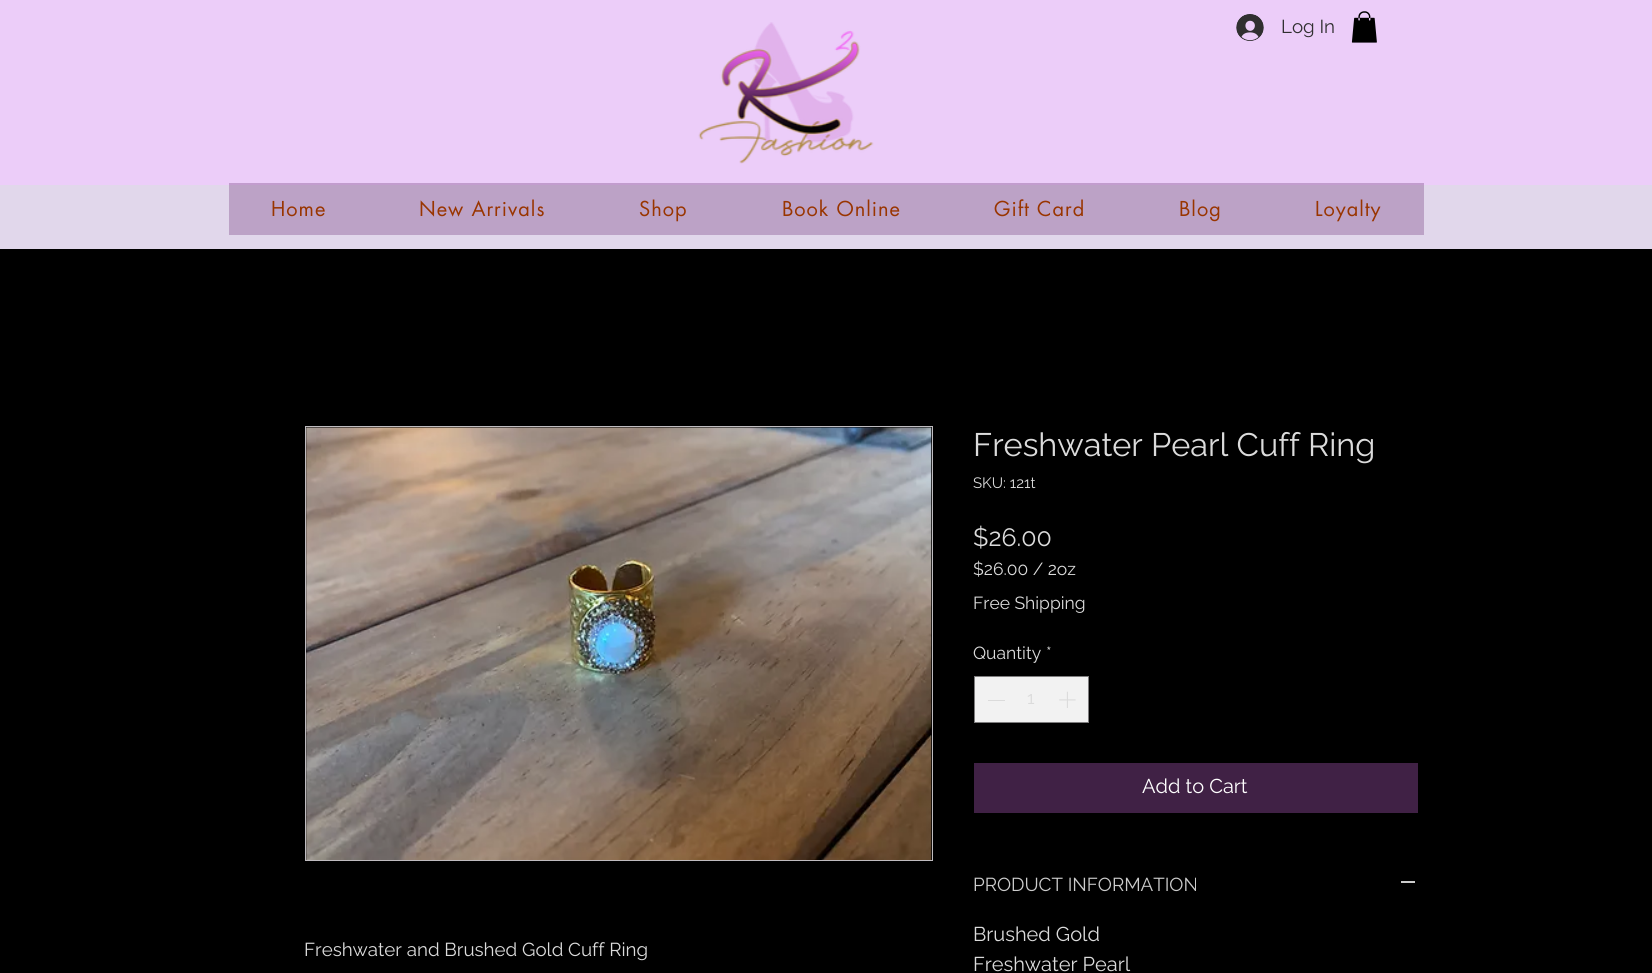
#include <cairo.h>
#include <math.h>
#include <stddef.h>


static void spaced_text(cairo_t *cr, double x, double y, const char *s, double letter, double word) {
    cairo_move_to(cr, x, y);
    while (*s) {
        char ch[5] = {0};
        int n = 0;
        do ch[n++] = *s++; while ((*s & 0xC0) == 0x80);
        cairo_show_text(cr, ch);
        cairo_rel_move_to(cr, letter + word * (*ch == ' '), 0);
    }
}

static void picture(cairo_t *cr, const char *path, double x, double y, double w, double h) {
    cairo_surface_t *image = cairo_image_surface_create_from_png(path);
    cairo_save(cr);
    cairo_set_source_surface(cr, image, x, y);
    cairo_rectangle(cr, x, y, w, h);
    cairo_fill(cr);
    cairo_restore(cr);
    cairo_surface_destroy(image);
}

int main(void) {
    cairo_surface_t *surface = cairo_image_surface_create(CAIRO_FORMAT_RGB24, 1652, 973);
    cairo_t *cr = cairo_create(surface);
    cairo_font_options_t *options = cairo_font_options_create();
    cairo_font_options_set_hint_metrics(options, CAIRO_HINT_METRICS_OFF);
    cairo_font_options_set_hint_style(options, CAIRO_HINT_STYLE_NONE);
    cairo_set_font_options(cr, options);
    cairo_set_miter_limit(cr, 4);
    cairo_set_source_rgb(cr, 0, 0, 0);
    cairo_paint(cr);
    cairo_set_source_rgb(cr, 0.925, 0.804, 0.976);
    cairo_rectangle(cr, 0, 0, 1652, 185);
    cairo_fill(cr);
    cairo_set_source_rgb(cr, 0.761, 0.612, 0.808);
    cairo_rectangle(cr, 229, 183, 1195, 2);
    cairo_fill(cr);
    picture(cr, "img1.png", 698, 22, 176, 142);
    picture(cr, "img2.png", 1236, 14, 28, 27);
    cairo_select_font_face(cr, "Raleway", CAIRO_FONT_SLANT_NORMAL, CAIRO_FONT_WEIGHT_NORMAL);
    cairo_set_font_size(cr, 18.75);
    cairo_set_source_rgb(cr, 0.188, 0.184, 0.188);
    cairo_move_to(cr, 1281, 33);
    cairo_show_text(cr, "Log In");
    picture(cr, "img3.png", 1351, 11, 26, 32);
    cairo_set_source_rgb(cr, 0.882, 0.843, 0.918);
    cairo_rectangle(cr, 0, 185, 1652, 64);
    cairo_fill(cr);
    cairo_set_source_rgb(cr, 0.737, 0.635, 0.776);
    cairo_rectangle(cr, 229, 185, 1195, 50);
    cairo_fill(cr);
    cairo_select_font_face(cr, "futura", CAIRO_FONT_SLANT_NORMAL, CAIRO_FONT_WEIGHT_NORMAL);
    cairo_set_font_size(cr, 20);
    cairo_set_source_rgb(cr, 0.6, 0.208, 0);
    spaced_text(cr, 271, 216, "Home", 1, 0);
    spaced_text(cr, 419, 216, "New Arrivals", 1, 0);
    spaced_text(cr, 639, 216, "Shop", 1, 0);
    spaced_text(cr, 782, 216, "Book Online", 1, 0);
    spaced_text(cr, 994, 216, "Gift Card", 1, 0);
    spaced_text(cr, 1179, 216, "Blog", 1, 0);
    spaced_text(cr, 1315, 216, "Loyalty", 1, 0);
    cairo_rectangle(cr, 305.5, 426.5, 627, 434);
    cairo_set_source_rgb(cr, 0.749, 0.737, 0.753);
    cairo_set_line_width(cr, 1);
    cairo_stroke(cr);
    picture(cr, "img4.png", 306, 427, 626, 433);
    cairo_select_font_face(cr, "Raleway", CAIRO_FONT_SLANT_NORMAL, CAIRO_FONT_WEIGHT_NORMAL);
    cairo_set_font_size(cr, 18.75);
    cairo_set_source_rgb(cr, 0.859, 0.859, 0.859);
    cairo_move_to(cr, 304, 956);
    cairo_show_text(cr, "Freshwater and Brushed Gold Cuff Ring");
    cairo_set_font_size(cr, 32.5);
    cairo_move_to(cr, 973, 456);
    cairo_show_text(cr, "Freshwater Pearl Cuff Ring");
    cairo_set_font_size(cr, 15);
    cairo_move_to(cr, 973, 488);
    cairo_show_text(cr, "SKU: 121t");
    cairo_set_font_size(cr, 25);
    cairo_move_to(cr, 973, 546);
    cairo_show_text(cr, "$26.00");
    cairo_set_font_size(cr, 17.5);
    cairo_move_to(cr, 973, 575);
    cairo_show_text(cr, "$26.00 / 2oz");
    cairo_move_to(cr, 973, 609);
    cairo_show_text(cr, "Free Shipping");
    cairo_move_to(cr, 973, 659);
    cairo_show_text(cr, "Quantity");
    cairo_move_to(cr, 1046, 659);
    cairo_show_text(cr, "*");
    cairo_set_source_rgb(cr, 0.949, 0.949, 0.949);
    cairo_rectangle(cr, 974.5, 676.5, 114, 46);
    cairo_fill_preserve(cr);
    cairo_set_source_rgb(cr, 0.494, 0.49, 0.494);
    cairo_stroke(cr);
    cairo_set_source_rgb(cr, 0.859, 0.859, 0.859);
    cairo_rectangle(cr, 988, 700, 17, 1);
    cairo_fill(cr);
    cairo_move_to(cr, 1027, 704);
    cairo_show_text(cr, "1");
    picture(cr, "img5.png", 1059, 691, 17, 17);
    cairo_set_source_rgb(cr, 0.251, 0.129, 0.271);
    cairo_rectangle(cr, 974, 763, 444, 50);
    cairo_fill(cr);
    cairo_set_font_size(cr, 20);
    cairo_set_source_rgb(cr, 1, 1, 1);
    cairo_move_to(cr, 1142, 793);
    cairo_show_text(cr, "Add to Cart");
    cairo_set_font_size(cr, 18.75);
    cairo_set_source_rgb(cr, 0.8, 0.8, 0.8);
    cairo_move_to(cr, 973, 891);
    cairo_show_text(cr, "PRODUCT INFORMATION");
    cairo_rectangle(cr, 1401, 881, 14, 2);
    cairo_fill(cr);
    cairo_set_font_size(cr, 20);
    cairo_set_source_rgb(cr, 0.859, 0.859, 0.859);
    cairo_move_to(cr, 973, 941);
    cairo_show_text(cr, "Brushed Gold");
    cairo_move_to(cr, 973, 971);
    cairo_show_text(cr, "Freshwater Pearl");
    cairo_surface_write_to_png(surface, "page.png");
    cairo_font_options_destroy(options);
    cairo_destroy(cr);
    cairo_surface_destroy(surface);
    return 0;
}
